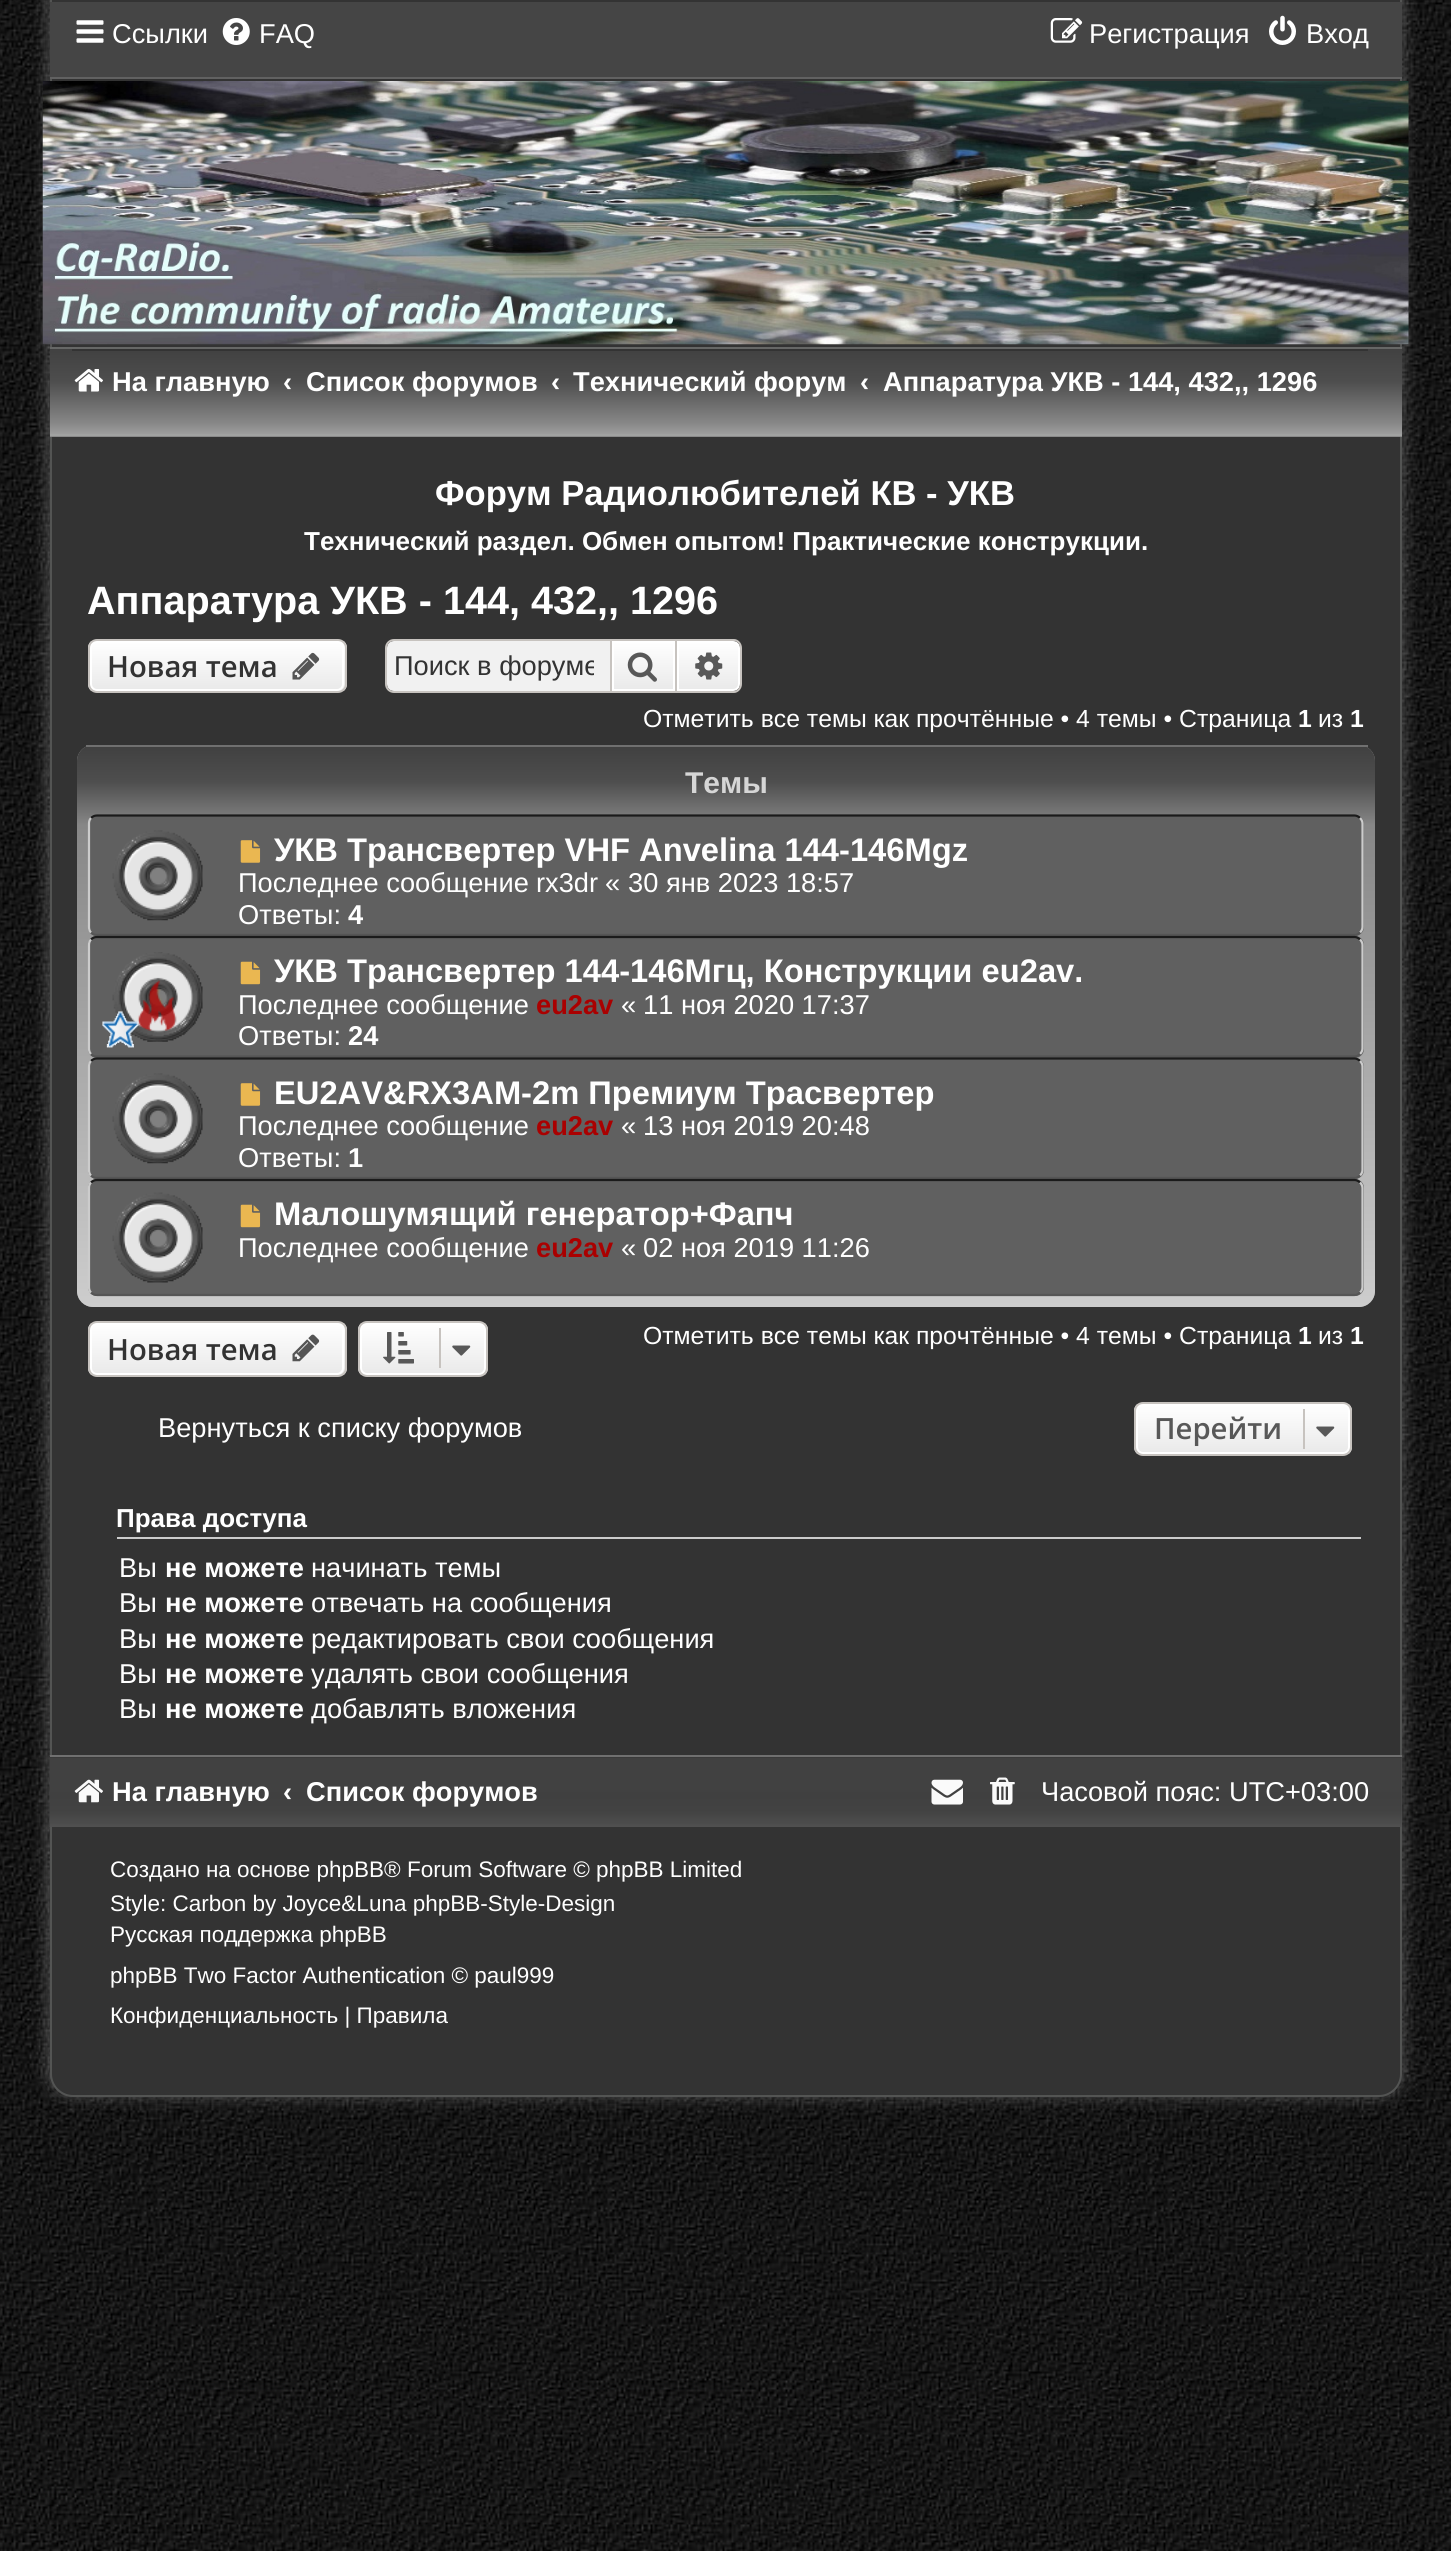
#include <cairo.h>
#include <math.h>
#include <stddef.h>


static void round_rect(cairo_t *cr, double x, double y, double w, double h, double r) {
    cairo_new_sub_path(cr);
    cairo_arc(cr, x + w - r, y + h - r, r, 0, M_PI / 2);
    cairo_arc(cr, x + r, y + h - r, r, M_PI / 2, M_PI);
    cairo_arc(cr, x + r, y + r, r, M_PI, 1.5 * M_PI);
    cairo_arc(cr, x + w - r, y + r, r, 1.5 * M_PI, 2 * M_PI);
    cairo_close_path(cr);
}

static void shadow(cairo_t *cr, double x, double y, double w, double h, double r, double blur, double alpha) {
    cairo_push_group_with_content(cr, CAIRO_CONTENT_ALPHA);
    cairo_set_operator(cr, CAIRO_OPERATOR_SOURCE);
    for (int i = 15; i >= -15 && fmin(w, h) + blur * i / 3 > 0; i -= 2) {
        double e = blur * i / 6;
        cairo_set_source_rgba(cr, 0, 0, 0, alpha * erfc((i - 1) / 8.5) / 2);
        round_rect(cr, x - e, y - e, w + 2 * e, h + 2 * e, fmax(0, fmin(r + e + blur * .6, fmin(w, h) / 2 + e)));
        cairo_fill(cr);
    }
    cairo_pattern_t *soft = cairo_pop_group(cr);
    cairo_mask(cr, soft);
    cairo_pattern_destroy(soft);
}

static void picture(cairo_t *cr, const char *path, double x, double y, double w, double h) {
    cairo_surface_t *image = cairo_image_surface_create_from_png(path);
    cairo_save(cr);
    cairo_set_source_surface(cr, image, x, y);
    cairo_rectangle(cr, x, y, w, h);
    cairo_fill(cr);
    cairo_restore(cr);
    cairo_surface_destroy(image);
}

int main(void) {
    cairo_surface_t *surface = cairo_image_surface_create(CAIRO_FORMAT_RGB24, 1451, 2551);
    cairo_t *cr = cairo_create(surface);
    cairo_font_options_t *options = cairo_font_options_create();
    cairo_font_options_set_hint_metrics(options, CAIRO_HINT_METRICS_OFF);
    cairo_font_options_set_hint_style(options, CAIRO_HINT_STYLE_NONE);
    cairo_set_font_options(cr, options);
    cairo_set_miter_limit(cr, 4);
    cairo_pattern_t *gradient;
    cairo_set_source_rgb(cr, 1, 1, 1);
    cairo_paint(cr);
    picture(cr, "img1.png", 0, 2131, 1451, 420);
    picture(cr, "img2.png", 0, 0, 1451, 2131);
    shadow(cr, 45, -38, 1361, 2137, 27, 7, 0.2);
    cairo_set_source_rgb(cr, 0.2, 0.2, 0.2);
    cairo_new_path(cr);
    cairo_move_to(cr, 51, -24);
    cairo_line_to(cr, 1401, -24);
    cairo_line_to(cr, 1401, 2074);
    cairo_curve_to(cr, 1401, 2086, 1391, 2096, 1379, 2096);
    cairo_line_to(cr, 73, 2096);
    cairo_curve_to(cr, 61, 2096, 51, 2086, 51, 2074);
    cairo_close_path(cr);
    cairo_fill_preserve(cr);
    cairo_set_source_rgb(cr, 0.325, 0.329, 0.325);
    cairo_stroke(cr);
    cairo_set_source_rgb(cr, 0.271, 0.271, 0.271);
    cairo_rectangle(cr, 50, 2, 1352, 75);
    cairo_fill(cr);
    picture(cr, "img3.png", 76, 20, 28, 23);
    cairo_select_font_face(cr, "Liberation Sans", CAIRO_FONT_SLANT_NORMAL, CAIRO_FONT_WEIGHT_NORMAL);
    cairo_set_font_size(cr, 27.25);
    cairo_set_source_rgb(cr, 1, 1, 1);
    cairo_move_to(cr, 112, 43);
    cairo_show_text(cr, "Ссылки");
    picture(cr, "img4.png", 222, 18, 28, 27);
    cairo_move_to(cr, 259, 43);
    cairo_show_text(cr, "FAQ");
    picture(cr, "img5.png", 1050, 18, 33, 25);
    cairo_move_to(cr, 1089, 43);
    cairo_show_text(cr, "Регистрация");
    picture(cr, "img6.png", 1269, 15, 27, 30);
    cairo_move_to(cr, 1306, 43);
    cairo_show_text(cr, "Вход");
    cairo_set_source_rgb(cr, 0.38, 0.38, 0.38);
    cairo_rectangle(cr, 50, 77, 1352, 2);
    cairo_fill(cr);
    picture(cr, "img7.png", 42, 81, 1367, 264);
    cairo_set_source_rgb(cr, 0.541, 0.541, 0.541);
    cairo_rectangle(cr, 50, 436, 1352, 1);
    cairo_fill(cr);
    gradient = cairo_pattern_create_linear(726, 349, 726, 481);
    cairo_pattern_add_color_stop_rgba(gradient, 0, 0.255, 0.255, 0.255, 1);
    cairo_pattern_add_color_stop_rgba(gradient, 0.25, 0.306, 0.306, 0.306, 1);
    cairo_pattern_add_color_stop_rgba(gradient, 0.56, 0.529, 0.529, 0.529, 1);
    cairo_pattern_add_color_stop_rgba(gradient, 1, 0.98, 0.98, 0.98, 1);
    cairo_set_source(cr, gradient);
    cairo_pattern_destroy(gradient);
    cairo_rectangle(cr, 50, 349, 1352, 85);
    cairo_fill(cr);
    cairo_set_source_rgb(cr, 0.4, 0.404, 0.4);
    cairo_rectangle(cr, 50, 347, 1352, 2);
    cairo_fill(cr);
    cairo_set_source_rgb(cr, 0.631, 0.635, 0.631);
    cairo_rectangle(cr, 50, 434, 1352, 2);
    cairo_fill(cr);
    cairo_set_source_rgb(cr, 0.2, 0.2, 0.2);
    cairo_rectangle(cr, 72, 349, 1296, 2);
    cairo_fill(cr);
    picture(cr, "img8.png", 74, 369, 29, 23);
    cairo_select_font_face(cr, "Liberation Sans", CAIRO_FONT_SLANT_NORMAL, CAIRO_FONT_WEIGHT_BOLD);
    cairo_set_source_rgb(cr, 1, 1, 1);
    cairo_move_to(cr, 112, 391);
    cairo_show_text(cr, "На главную");
    cairo_move_to(cr, 283, 391);
    cairo_show_text(cr, "‹");
    cairo_move_to(cr, 306, 391);
    cairo_show_text(cr, "Список форумов");
    cairo_move_to(cr, 551, 391);
    cairo_show_text(cr, "‹");
    cairo_move_to(cr, 573, 391);
    cairo_show_text(cr, "Технический форум");
    cairo_move_to(cr, 860, 391);
    cairo_show_text(cr, "‹");
    cairo_move_to(cr, 883, 391);
    cairo_show_text(cr, "Аппаратура УКВ - 144, 432,, 1296");
    cairo_set_font_size(cr, 34.6);
    cairo_move_to(cr, 435, 505);
    cairo_show_text(cr, "Форум Радиолюбителей КВ - УКВ");
    cairo_set_font_size(cr, 26);
    cairo_move_to(cr, 304, 550);
    cairo_show_text(cr, "Технический раздел. Обмен опытом! Практические конструкции.");
    cairo_set_font_size(cr, 39.6);
    cairo_move_to(cr, 87, 614);
    cairo_show_text(cr, "Аппаратура УКВ - 144, 432,, 1296");
    cairo_save(cr);
    round_rect(cr, 88, 639, 259, 54, 9);
    cairo_clip(cr);
    gradient = cairo_pattern_create_linear(217, 641, 217, 691);
    cairo_pattern_add_color_stop_rgba(gradient, 0, 1, 1, 1, 1);
    cairo_pattern_add_color_stop_rgba(gradient, 1, 0.914, 0.914, 0.914, 1);
    cairo_set_source(cr, gradient);
    cairo_pattern_destroy(gradient);
    cairo_rectangle(cr, 88, 641, 259, 50);
    cairo_fill(cr);
    cairo_restore(cr);
    round_rect(cr, 91, 642, 252, 48, 6);
    cairo_stroke(cr);
    round_rect(cr, 89, 640, 257, 52, 8);
    cairo_set_source_rgb(cr, 0.78, 0.765, 0.749);
    cairo_stroke(cr);
    cairo_select_font_face(cr, "Open Sans SemiBold", CAIRO_FONT_SLANT_NORMAL, CAIRO_FONT_WEIGHT_NORMAL);
    cairo_set_font_size(cr, 29.25);
    cairo_set_source_rgb(cr, 0.2, 0.2, 0.2);
    cairo_move_to(cr, 107, 677);
    cairo_show_text(cr, "Новая тема");
    picture(cr, "img9.png", 292, 652, 28, 28);
    cairo_set_source_rgb(cr, 0.945, 0.945, 0.945);
    cairo_new_path(cr);
    cairo_move_to(cr, 394, 641);
    cairo_line_to(cr, 610, 641);
    cairo_line_to(cr, 610, 691);
    cairo_line_to(cr, 394, 691);
    cairo_curve_to(cr, 390, 691, 387, 688, 387, 684);
    cairo_line_to(cr, 387, 648);
    cairo_curve_to(cr, 387, 644, 390, 641, 394, 641);
    cairo_close_path(cr);
    cairo_fill(cr);
    cairo_set_source_rgb(cr, 0.78, 0.765, 0.749);
    cairo_set_fill_rule(cr, CAIRO_FILL_RULE_EVEN_ODD);
    cairo_new_path(cr);
    cairo_move_to(cr, 394, 639);
    cairo_line_to(cr, 610, 639);
    cairo_line_to(cr, 610, 693);
    cairo_line_to(cr, 394, 693);
    cairo_curve_to(cr, 389, 693, 385, 689, 385, 684);
    cairo_line_to(cr, 385, 648);
    cairo_curve_to(cr, 385, 643, 389, 639, 394, 639);
    cairo_close_path(cr);
    cairo_move_to(cr, 394, 641);
    cairo_line_to(cr, 610, 641);
    cairo_line_to(cr, 610, 691);
    cairo_line_to(cr, 394, 691);
    cairo_curve_to(cr, 390, 691, 387, 688, 387, 684);
    cairo_line_to(cr, 387, 648);
    cairo_curve_to(cr, 387, 644, 390, 641, 394, 641);
    cairo_close_path(cr);
    cairo_fill(cr);
    cairo_save(cr);
    cairo_set_fill_rule(cr, CAIRO_FILL_RULE_WINDING);
    cairo_rectangle(cr, 394, 650, 200, 32);
    cairo_clip(cr);
    cairo_select_font_face(cr, "Liberation Sans", CAIRO_FONT_SLANT_NORMAL, CAIRO_FONT_WEIGHT_NORMAL);
    cairo_set_font_size(cr, 27.25);
    cairo_set_source_rgb(cr, 0.2, 0.2, 0.2);
    cairo_move_to(cr, 394, 675);
    cairo_show_text(cr, "Поиск в форуме");
    cairo_restore(cr);
    gradient = cairo_pattern_create_linear(644, 641, 644, 691);
    cairo_pattern_add_color_stop_rgba(gradient, 0, 1, 1, 1, 1);
    cairo_pattern_add_color_stop_rgba(gradient, 1, 0.914, 0.914, 0.914, 1);
    cairo_set_source(cr, gradient);
    cairo_pattern_destroy(gradient);
    cairo_rectangle(cr, 614, 643, 59, 46);
    cairo_fill(cr);
    cairo_rectangle(cr, 613, 642, 61, 48);
    cairo_set_source_rgb(cr, 1, 1, 1);
    cairo_stroke(cr);
    cairo_rectangle(cr, 611, 640, 65, 52);
    cairo_set_source_rgb(cr, 0.78, 0.765, 0.749);
    cairo_stroke(cr);
    picture(cr, "img10.png", 627, 652, 30, 30);
    gradient = cairo_pattern_create_linear(709, 641, 709, 691);
    cairo_pattern_add_color_stop_rgba(gradient, 0, 1, 1, 1, 1);
    cairo_pattern_add_color_stop_rgba(gradient, 1, 0.914, 0.914, 0.914, 1);
    cairo_set_source(cr, gradient);
    cairo_pattern_destroy(gradient);
    cairo_new_path(cr);
    cairo_move_to(cr, 678, 642);
    cairo_line_to(cr, 733, 642);
    cairo_curve_to(cr, 736.5, 642, 739, 644.5, 739, 648);
    cairo_line_to(cr, 739, 684);
    cairo_curve_to(cr, 739, 687.5, 736.5, 690, 733, 690);
    cairo_line_to(cr, 678, 690);
    cairo_close_path(cr);
    cairo_fill_preserve(cr);
    cairo_set_source_rgb(cr, 1, 1, 1);
    cairo_stroke(cr);
    cairo_set_source_rgb(cr, 0.78, 0.765, 0.749);
    cairo_new_path(cr);
    cairo_move_to(cr, 677, 639);
    cairo_line_to(cr, 734, 639);
    cairo_curve_to(cr, 738, 639, 742, 643, 742, 648);
    cairo_line_to(cr, 742, 684);
    cairo_curve_to(cr, 742, 689, 738, 693, 734, 693);
    cairo_line_to(cr, 677, 693);
    cairo_close_path(cr);
    cairo_move_to(cr, 677, 641);
    cairo_line_to(cr, 734, 641);
    cairo_curve_to(cr, 737, 641, 740, 644, 740, 648);
    cairo_line_to(cr, 740, 684);
    cairo_curve_to(cr, 740, 688, 737, 691, 734, 691);
    cairo_line_to(cr, 677, 691);
    cairo_close_path(cr);
    cairo_fill(cr);
    picture(cr, "img11.png", 695, 652, 28, 28);
    cairo_select_font_face(cr, "Liberation Sans", CAIRO_FONT_SLANT_NORMAL, CAIRO_FONT_WEIGHT_NORMAL);
    cairo_set_font_size(cr, 24.75);
    cairo_set_source_rgb(cr, 1, 1, 1);
    cairo_move_to(cr, 643, 727);
    cairo_show_text(cr, "Отметить все темы как прочтённые • 4 темы • Страница");
    cairo_select_font_face(cr, "Liberation Sans", CAIRO_FONT_SLANT_NORMAL, CAIRO_FONT_WEIGHT_BOLD);
    cairo_move_to(cr, 1298, 727);
    cairo_show_text(cr, "1");
    cairo_select_font_face(cr, "Liberation Sans", CAIRO_FONT_SLANT_NORMAL, CAIRO_FONT_WEIGHT_NORMAL);
    cairo_move_to(cr, 1318, 727);
    cairo_show_text(cr, "из");
    cairo_select_font_face(cr, "Liberation Sans", CAIRO_FONT_SLANT_NORMAL, CAIRO_FONT_WEIGHT_BOLD);
    cairo_move_to(cr, 1350, 727);
    cairo_show_text(cr, "1");
    cairo_set_source_rgb(cr, 0.541, 0.541, 0.541);
    round_rect(cr, 77, 745, 1298, 562, 16);
    cairo_fill(cr);
    cairo_save(cr);
    cairo_set_fill_rule(cr, CAIRO_FILL_RULE_WINDING);
    round_rect(cr, 77, 745, 1298, 562, 16);
    cairo_clip(cr);
    gradient = cairo_pattern_create_linear(726, 747, 726, 1615);
    cairo_pattern_add_color_stop_rgba(gradient, 0, 0.255, 0.255, 0.255, 1);
    cairo_pattern_add_color_stop_rgba(gradient, 0.04, 0.306, 0.306, 0.306, 1);
    cairo_pattern_add_color_stop_rgba(gradient, 0.09, 0.529, 0.529, 0.529, 1);
    cairo_pattern_add_color_stop_rgba(gradient, 1, 0.98, 0.98, 0.98, 1);
    cairo_set_source(cr, gradient);
    cairo_pattern_destroy(gradient);
    cairo_new_path(cr);
    cairo_move_to(cr, 77, 747);
    cairo_line_to(cr, 1375, 747);
    cairo_line_to(cr, 1375, 1291);
    cairo_curve_to(cr, 1375, 1300, 1368, 1307, 1359, 1307);
    cairo_line_to(cr, 93, 1307);
    cairo_curve_to(cr, 84, 1307, 77, 1300, 77, 1291);
    cairo_close_path(cr);
    cairo_fill(cr);
    cairo_restore(cr);
    cairo_set_source_rgb(cr, 0.439, 0.439, 0.439);
    cairo_rectangle(cr, 86, 745, 1282, 2);
    cairo_fill(cr);
    cairo_set_font_size(cr, 30);
    cairo_set_source_rgb(cr, 0.839, 0.839, 0.839);
    cairo_move_to(cr, 685, 793);
    cairo_show_text(cr, "Темы");
    cairo_set_source_rgb(cr, 0.376, 0.376, 0.376);
    round_rect(cr, 88, 815, 1276, 121, 9);
    cairo_fill(cr);
    cairo_new_path(cr);
    cairo_move_to(cr, 91, 818);
    cairo_curve_to(cr, 92.5, 816.5, 94.5, 815.5, 97, 815.5);
    cairo_line_to(cr, 1354.5, 815.5);
    cairo_curve_to(cr, 1356.5, 815.5, 1358.5, 816.5, 1360, 818);
    cairo_set_source_rgb(cr, 0.106, 0.106, 0.106);
    cairo_set_line_width(cr, 2.2);
    cairo_stroke(cr);
    cairo_new_path(cr);
    cairo_move_to(cr, 1360, 818);
    cairo_curve_to(cr, 1361.5, 819.5, 1362.5, 821.5, 1362.5, 823.5);
    cairo_line_to(cr, 1362.5, 927);
    cairo_curve_to(cr, 1362.5, 929, 1361.5, 931, 1360, 932.5);
    cairo_set_source_rgb(cr, 0.8, 0.8, 0.8);
    cairo_stroke(cr);
    cairo_new_path(cr);
    cairo_move_to(cr, 1360, 932.5);
    cairo_curve_to(cr, 1358.5, 934, 1356.5, 935, 1354.5, 935);
    cairo_line_to(cr, 97, 935);
    cairo_curve_to(cr, 94.5, 935, 92.5, 934, 91, 932.5);
    cairo_set_source_rgb(cr, 0.333, 0.333, 0.333);
    cairo_stroke(cr);
    cairo_new_path(cr);
    cairo_move_to(cr, 91, 932.5);
    cairo_curve_to(cr, 89.5, 931, 89, 929, 89, 927);
    cairo_line_to(cr, 89, 823.5);
    cairo_curve_to(cr, 89, 821.5, 89.5, 819.5, 91, 818);
    cairo_set_source_rgb(cr, 0.8, 0.8, 0.8);
    cairo_stroke(cr);
    picture(cr, "img12.png", 112, 830, 91, 91);
    picture(cr, "img13.png", 240, 840, 21, 23);
    cairo_set_font_size(cr, 32.7);
    cairo_set_source_rgb(cr, 1, 1, 1);
    cairo_move_to(cr, 274, 861);
    cairo_show_text(cr, "УКВ Трансвертер VHF Anvelina 144-146Mgz");
    cairo_select_font_face(cr, "Liberation Sans", CAIRO_FONT_SLANT_NORMAL, CAIRO_FONT_WEIGHT_NORMAL);
    cairo_set_font_size(cr, 27.25);
    cairo_move_to(cr, 238, 892);
    cairo_show_text(cr, "Последнее сообщение");
    cairo_move_to(cr, 536, 892);
    cairo_show_text(cr, "rx3dr");
    cairo_move_to(cr, 605, 892);
    cairo_show_text(cr, "«");
    cairo_move_to(cr, 628, 892);
    cairo_show_text(cr, "30 янв 2023 18:57");
    cairo_move_to(cr, 238, 924);
    cairo_show_text(cr, "Ответы:");
    cairo_select_font_face(cr, "Liberation Sans", CAIRO_FONT_SLANT_NORMAL, CAIRO_FONT_WEIGHT_BOLD);
    cairo_move_to(cr, 348, 924);
    cairo_show_text(cr, "4");
    cairo_set_source_rgb(cr, 0.376, 0.376, 0.376);
    round_rect(cr, 88, 936, 1276, 122, 9);
    cairo_fill(cr);
    cairo_new_path(cr);
    cairo_move_to(cr, 91, 939.5);
    cairo_curve_to(cr, 92.5, 938, 94.5, 937, 97, 937);
    cairo_line_to(cr, 1354.5, 937);
    cairo_curve_to(cr, 1356.5, 937, 1358.5, 938, 1360, 939.5);
    cairo_set_source_rgb(cr, 0.106, 0.106, 0.106);
    cairo_stroke(cr);
    cairo_new_path(cr);
    cairo_move_to(cr, 1360, 939.5);
    cairo_curve_to(cr, 1361.5, 941, 1362.5, 943, 1362.5, 945);
    cairo_line_to(cr, 1362.5, 1048.5);
    cairo_curve_to(cr, 1362.5, 1050.5, 1361.5, 1052.5, 1360, 1054);
    cairo_set_source_rgb(cr, 0.8, 0.8, 0.8);
    cairo_stroke(cr);
    cairo_new_path(cr);
    cairo_move_to(cr, 1360, 1054);
    cairo_curve_to(cr, 1358.5, 1055.5, 1356.5, 1056.5, 1354.5, 1056.5);
    cairo_line_to(cr, 97, 1056.5);
    cairo_curve_to(cr, 94.5, 1056.5, 92.5, 1055.5, 91, 1054);
    cairo_set_source_rgb(cr, 0.333, 0.333, 0.333);
    cairo_stroke(cr);
    cairo_new_path(cr);
    cairo_move_to(cr, 91, 1054);
    cairo_curve_to(cr, 89.5, 1052.5, 89, 1050.5, 89, 1048.5);
    cairo_line_to(cr, 89, 945);
    cairo_curve_to(cr, 89, 943, 89.5, 941, 91, 939.5);
    cairo_set_source_rgb(cr, 0.8, 0.8, 0.8);
    cairo_stroke(cr);
    picture(cr, "img14.png", 112, 952, 91, 90);
    picture(cr, "img15.png", 102, 1011, 37, 37);
    picture(cr, "img16.png", 240, 961, 21, 24);
    cairo_set_font_size(cr, 32.7);
    cairo_set_source_rgb(cr, 1, 1, 1);
    cairo_move_to(cr, 274, 982);
    cairo_show_text(cr, "УКВ Трансвертер 144-146Мгц, Конструкции eu2av.");
    cairo_select_font_face(cr, "Liberation Sans", CAIRO_FONT_SLANT_NORMAL, CAIRO_FONT_WEIGHT_NORMAL);
    cairo_set_font_size(cr, 27.25);
    cairo_move_to(cr, 238, 1014);
    cairo_show_text(cr, "Последнее сообщение");
    cairo_select_font_face(cr, "Liberation Sans", CAIRO_FONT_SLANT_NORMAL, CAIRO_FONT_WEIGHT_BOLD);
    cairo_set_source_rgb(cr, 0.667, 0, 0);
    cairo_move_to(cr, 536, 1014);
    cairo_show_text(cr, "eu2av");
    cairo_select_font_face(cr, "Liberation Sans", CAIRO_FONT_SLANT_NORMAL, CAIRO_FONT_WEIGHT_NORMAL);
    cairo_set_source_rgb(cr, 1, 1, 1);
    cairo_move_to(cr, 621, 1014);
    cairo_show_text(cr, "«");
    cairo_move_to(cr, 643, 1014);
    cairo_show_text(cr, "11 ноя 2020 17:37");
    cairo_move_to(cr, 238, 1045);
    cairo_show_text(cr, "Ответы:");
    cairo_select_font_face(cr, "Liberation Sans", CAIRO_FONT_SLANT_NORMAL, CAIRO_FONT_WEIGHT_BOLD);
    cairo_move_to(cr, 348, 1045);
    cairo_show_text(cr, "24");
    cairo_set_source_rgb(cr, 0.376, 0.376, 0.376);
    round_rect(cr, 88, 1058, 1276, 121, 9);
    cairo_fill(cr);
    cairo_new_path(cr);
    cairo_move_to(cr, 91, 1061);
    cairo_curve_to(cr, 92.5, 1059.5, 94.5, 1058.5, 97, 1058.5);
    cairo_line_to(cr, 1354.5, 1058.5);
    cairo_curve_to(cr, 1356.5, 1058.5, 1358.5, 1059.5, 1360, 1061);
    cairo_set_source_rgb(cr, 0.106, 0.106, 0.106);
    cairo_stroke(cr);
    cairo_new_path(cr);
    cairo_move_to(cr, 1360, 1061);
    cairo_curve_to(cr, 1361.5, 1062.5, 1362.5, 1064.5, 1362.5, 1066.5);
    cairo_line_to(cr, 1362.5, 1170);
    cairo_curve_to(cr, 1362.5, 1172, 1361.5, 1174, 1360, 1175.5);
    cairo_set_source_rgb(cr, 0.8, 0.8, 0.8);
    cairo_stroke(cr);
    cairo_new_path(cr);
    cairo_move_to(cr, 1360, 1175.5);
    cairo_curve_to(cr, 1358.5, 1177, 1356.5, 1178, 1354.5, 1178);
    cairo_line_to(cr, 97, 1178);
    cairo_curve_to(cr, 94.5, 1178, 92.5, 1177, 91, 1175.5);
    cairo_set_source_rgb(cr, 0.333, 0.333, 0.333);
    cairo_stroke(cr);
    cairo_new_path(cr);
    cairo_move_to(cr, 91, 1175.5);
    cairo_curve_to(cr, 89.5, 1174, 89, 1172, 89, 1170);
    cairo_line_to(cr, 89, 1066.5);
    cairo_curve_to(cr, 89, 1064.5, 89.5, 1062.5, 91, 1061);
    cairo_set_source_rgb(cr, 0.8, 0.8, 0.8);
    cairo_stroke(cr);
    picture(cr, "img12.png", 112, 1073, 91, 91);
    picture(cr, "img13.png", 240, 1083, 21, 23);
    cairo_set_font_size(cr, 32.7);
    cairo_set_source_rgb(cr, 1, 1, 1);
    cairo_move_to(cr, 274, 1104);
    cairo_show_text(cr, "EU2AV&RX3AM-2m Премиум Трасвертер");
    cairo_select_font_face(cr, "Liberation Sans", CAIRO_FONT_SLANT_NORMAL, CAIRO_FONT_WEIGHT_NORMAL);
    cairo_set_font_size(cr, 27.25);
    cairo_move_to(cr, 238, 1135);
    cairo_show_text(cr, "Последнее сообщение");
    cairo_select_font_face(cr, "Liberation Sans", CAIRO_FONT_SLANT_NORMAL, CAIRO_FONT_WEIGHT_BOLD);
    cairo_set_source_rgb(cr, 0.667, 0, 0);
    cairo_move_to(cr, 536, 1135);
    cairo_show_text(cr, "eu2av");
    cairo_select_font_face(cr, "Liberation Sans", CAIRO_FONT_SLANT_NORMAL, CAIRO_FONT_WEIGHT_NORMAL);
    cairo_set_source_rgb(cr, 1, 1, 1);
    cairo_move_to(cr, 621, 1135);
    cairo_show_text(cr, "«");
    cairo_move_to(cr, 643, 1135);
    cairo_show_text(cr, "13 ноя 2019 20:48");
    cairo_move_to(cr, 238, 1167);
    cairo_show_text(cr, "Ответы:");
    cairo_select_font_face(cr, "Liberation Sans", CAIRO_FONT_SLANT_NORMAL, CAIRO_FONT_WEIGHT_BOLD);
    cairo_move_to(cr, 348, 1167);
    cairo_show_text(cr, "1");
    cairo_set_source_rgb(cr, 0.376, 0.376, 0.376);
    round_rect(cr, 88, 1179, 1276, 117, 9);
    cairo_fill(cr);
    cairo_new_path(cr);
    cairo_move_to(cr, 91, 1182.5);
    cairo_curve_to(cr, 92.5, 1181, 94.5, 1180, 97, 1180);
    cairo_line_to(cr, 1354.5, 1180);
    cairo_curve_to(cr, 1356.5, 1180, 1358.5, 1181, 1360, 1182.5);
    cairo_set_source_rgb(cr, 0.106, 0.106, 0.106);
    cairo_stroke(cr);
    cairo_new_path(cr);
    cairo_move_to(cr, 1360, 1182.5);
    cairo_curve_to(cr, 1361.5, 1184, 1362.5, 1186, 1362.5, 1188);
    cairo_line_to(cr, 1362.5, 1287);
    cairo_curve_to(cr, 1362.5, 1289, 1361.5, 1291, 1360, 1292.5);
    cairo_set_source_rgb(cr, 0.8, 0.8, 0.8);
    cairo_stroke(cr);
    cairo_new_path(cr);
    cairo_move_to(cr, 1360, 1292.5);
    cairo_curve_to(cr, 1358.5, 1294, 1356.5, 1295, 1354.5, 1295);
    cairo_line_to(cr, 97, 1295);
    cairo_curve_to(cr, 94.5, 1295, 92.5, 1294, 91, 1292.5);
    cairo_set_source_rgb(cr, 0.333, 0.333, 0.333);
    cairo_stroke(cr);
    cairo_new_path(cr);
    cairo_move_to(cr, 91, 1292.5);
    cairo_curve_to(cr, 89.5, 1291, 89, 1289, 89, 1287);
    cairo_line_to(cr, 89, 1188);
    cairo_curve_to(cr, 89, 1186, 89.5, 1184, 91, 1182.5);
    cairo_set_source_rgb(cr, 0.8, 0.8, 0.8);
    cairo_stroke(cr);
    picture(cr, "img17.png", 112, 1192, 91, 91);
    picture(cr, "img16.png", 240, 1204, 21, 24);
    cairo_set_font_size(cr, 32.7);
    cairo_set_source_rgb(cr, 1, 1, 1);
    cairo_move_to(cr, 274, 1225);
    cairo_show_text(cr, "Малошумящий генератор+Фапч");
    cairo_select_font_face(cr, "Liberation Sans", CAIRO_FONT_SLANT_NORMAL, CAIRO_FONT_WEIGHT_NORMAL);
    cairo_set_font_size(cr, 27.25);
    cairo_move_to(cr, 238, 1257);
    cairo_show_text(cr, "Последнее сообщение");
    cairo_select_font_face(cr, "Liberation Sans", CAIRO_FONT_SLANT_NORMAL, CAIRO_FONT_WEIGHT_BOLD);
    cairo_set_source_rgb(cr, 0.667, 0, 0);
    cairo_move_to(cr, 536, 1257);
    cairo_show_text(cr, "eu2av");
    cairo_select_font_face(cr, "Liberation Sans", CAIRO_FONT_SLANT_NORMAL, CAIRO_FONT_WEIGHT_NORMAL);
    cairo_set_source_rgb(cr, 1, 1, 1);
    cairo_move_to(cr, 621, 1257);
    cairo_show_text(cr, "«");
    cairo_move_to(cr, 643, 1257);
    cairo_show_text(cr, "02 ноя 2019 11:26");
    cairo_save(cr);
    cairo_set_fill_rule(cr, CAIRO_FILL_RULE_WINDING);
    round_rect(cr, 88, 1321, 259, 56, 9);
    cairo_clip(cr);
    gradient = cairo_pattern_create_linear(217, 1323, 217, 1375);
    cairo_pattern_add_color_stop_rgba(gradient, 0, 1, 1, 1, 1);
    cairo_pattern_add_color_stop_rgba(gradient, 1, 0.914, 0.914, 0.914, 1);
    cairo_set_source(cr, gradient);
    cairo_pattern_destroy(gradient);
    cairo_rectangle(cr, 88, 1323, 259, 52);
    cairo_fill(cr);
    cairo_restore(cr);
    round_rect(cr, 91, 1324, 252, 50, 6);
    cairo_set_line_width(cr, 2);
    cairo_stroke(cr);
    round_rect(cr, 89, 1322, 257, 54, 8);
    cairo_set_source_rgb(cr, 0.78, 0.765, 0.749);
    cairo_stroke(cr);
    cairo_select_font_face(cr, "Open Sans SemiBold", CAIRO_FONT_SLANT_NORMAL, CAIRO_FONT_WEIGHT_NORMAL);
    cairo_set_font_size(cr, 29.25);
    cairo_set_source_rgb(cr, 0.2, 0.2, 0.2);
    cairo_move_to(cr, 107, 1360);
    cairo_show_text(cr, "Новая тема");
    picture(cr, "img18.png", 292, 1334, 28, 28);
    cairo_save(cr);
    cairo_set_fill_rule(cr, CAIRO_FILL_RULE_WINDING);
    round_rect(cr, 358, 1321, 130, 56, 9);
    cairo_clip(cr);
    gradient = cairo_pattern_create_linear(423, 1323, 423, 1375);
    cairo_pattern_add_color_stop_rgba(gradient, 0, 1, 1, 1, 1);
    cairo_pattern_add_color_stop_rgba(gradient, 1, 0.914, 0.914, 0.914, 1);
    cairo_set_source(cr, gradient);
    cairo_pattern_destroy(gradient);
    cairo_rectangle(cr, 358, 1323, 130, 52);
    cairo_fill(cr);
    cairo_restore(cr);
    round_rect(cr, 361, 1324, 124, 50, 6);
    cairo_set_source_rgb(cr, 1, 1, 1);
    cairo_stroke(cr);
    round_rect(cr, 359, 1322, 128, 54, 8);
    cairo_set_source_rgb(cr, 0.78, 0.765, 0.749);
    cairo_stroke(cr);
    picture(cr, "img19.png", 383, 1332, 31, 32);
    cairo_rectangle(cr, 439, 1328, 2, 40);
    cairo_fill(cr);
    picture(cr, "img20.png", 452, 1345, 19, 11);
    cairo_select_font_face(cr, "Liberation Sans", CAIRO_FONT_SLANT_NORMAL, CAIRO_FONT_WEIGHT_NORMAL);
    cairo_set_font_size(cr, 24.75);
    cairo_set_source_rgb(cr, 1, 1, 1);
    cairo_move_to(cr, 643, 1344);
    cairo_show_text(cr, "Отметить все темы как прочтённые • 4 темы • Страница");
    cairo_select_font_face(cr, "Liberation Sans", CAIRO_FONT_SLANT_NORMAL, CAIRO_FONT_WEIGHT_BOLD);
    cairo_move_to(cr, 1298, 1344);
    cairo_show_text(cr, "1");
    cairo_select_font_face(cr, "Liberation Sans", CAIRO_FONT_SLANT_NORMAL, CAIRO_FONT_WEIGHT_NORMAL);
    cairo_move_to(cr, 1318, 1344);
    cairo_show_text(cr, "из");
    cairo_select_font_face(cr, "Liberation Sans", CAIRO_FONT_SLANT_NORMAL, CAIRO_FONT_WEIGHT_BOLD);
    cairo_move_to(cr, 1350, 1344);
    cairo_show_text(cr, "1");
    cairo_select_font_face(cr, "Liberation Sans", CAIRO_FONT_SLANT_NORMAL, CAIRO_FONT_WEIGHT_NORMAL);
    cairo_set_font_size(cr, 27.25);
    cairo_move_to(cr, 158, 1437);
    cairo_show_text(cr, "Вернуться к списку форумов");
    cairo_save(cr);
    cairo_set_fill_rule(cr, CAIRO_FILL_RULE_WINDING);
    round_rect(cr, 1134, 1402, 218, 54, 9);
    cairo_clip(cr);
    gradient = cairo_pattern_create_linear(1243, 1404, 1243, 1454);
    cairo_pattern_add_color_stop_rgba(gradient, 0, 1, 1, 1, 1);
    cairo_pattern_add_color_stop_rgba(gradient, 1, 0.914, 0.914, 0.914, 1);
    cairo_set_source(cr, gradient);
    cairo_pattern_destroy(gradient);
    cairo_rectangle(cr, 1134, 1404, 218, 50);
    cairo_fill(cr);
    cairo_restore(cr);
    round_rect(cr, 1137, 1405, 212, 48, 6);
    cairo_stroke(cr);
    round_rect(cr, 1135, 1403, 216, 52, 8);
    cairo_set_source_rgb(cr, 0.78, 0.765, 0.749);
    cairo_stroke(cr);
    cairo_select_font_face(cr, "Open Sans SemiBold", CAIRO_FONT_SLANT_NORMAL, CAIRO_FONT_WEIGHT_NORMAL);
    cairo_set_font_size(cr, 29.25);
    cairo_set_source_rgb(cr, 0.345, 0.345, 0.345);
    cairo_move_to(cr, 1154, 1439);
    cairo_show_text(cr, "Перейти");
    cairo_set_source_rgb(cr, 0.78, 0.765, 0.749);
    cairo_rectangle(cr, 1303, 1409, 2, 40);
    cairo_fill(cr);
    picture(cr, "img21.png", 1316, 1426, 19, 11);
    cairo_set_source_rgb(cr, 0.8, 0.8, 0.8);
    cairo_rectangle(cr, 117, 1537, 1244, 2);
    cairo_fill(cr);
    cairo_select_font_face(cr, "Liberation Sans", CAIRO_FONT_SLANT_NORMAL, CAIRO_FONT_WEIGHT_BOLD);
    cairo_set_font_size(cr, 26);
    cairo_set_source_rgb(cr, 1, 1, 1);
    cairo_move_to(cr, 116, 1527);
    cairo_show_text(cr, "Права доступа");
    cairo_select_font_face(cr, "Liberation Sans", CAIRO_FONT_SLANT_NORMAL, CAIRO_FONT_WEIGHT_NORMAL);
    cairo_set_font_size(cr, 27.25);
    cairo_move_to(cr, 119, 1577);
    cairo_show_text(cr, "Вы");
    cairo_select_font_face(cr, "Liberation Sans", CAIRO_FONT_SLANT_NORMAL, CAIRO_FONT_WEIGHT_BOLD);
    cairo_move_to(cr, 165, 1577);
    cairo_show_text(cr, "не можете");
    cairo_select_font_face(cr, "Liberation Sans", CAIRO_FONT_SLANT_NORMAL, CAIRO_FONT_WEIGHT_NORMAL);
    cairo_move_to(cr, 311, 1577);
    cairo_show_text(cr, "начинать темы");
    cairo_move_to(cr, 119, 1612);
    cairo_show_text(cr, "Вы");
    cairo_select_font_face(cr, "Liberation Sans", CAIRO_FONT_SLANT_NORMAL, CAIRO_FONT_WEIGHT_BOLD);
    cairo_move_to(cr, 165, 1612);
    cairo_show_text(cr, "не можете");
    cairo_select_font_face(cr, "Liberation Sans", CAIRO_FONT_SLANT_NORMAL, CAIRO_FONT_WEIGHT_NORMAL);
    cairo_move_to(cr, 311, 1612);
    cairo_show_text(cr, "отвечать на сообщения");
    cairo_move_to(cr, 119, 1648);
    cairo_show_text(cr, "Вы");
    cairo_select_font_face(cr, "Liberation Sans", CAIRO_FONT_SLANT_NORMAL, CAIRO_FONT_WEIGHT_BOLD);
    cairo_move_to(cr, 165, 1648);
    cairo_show_text(cr, "не можете");
    cairo_select_font_face(cr, "Liberation Sans", CAIRO_FONT_SLANT_NORMAL, CAIRO_FONT_WEIGHT_NORMAL);
    cairo_move_to(cr, 311, 1648);
    cairo_show_text(cr, "редактировать свои сообщения");
    cairo_move_to(cr, 119, 1683);
    cairo_show_text(cr, "Вы");
    cairo_select_font_face(cr, "Liberation Sans", CAIRO_FONT_SLANT_NORMAL, CAIRO_FONT_WEIGHT_BOLD);
    cairo_move_to(cr, 165, 1683);
    cairo_show_text(cr, "не можете");
    cairo_select_font_face(cr, "Liberation Sans", CAIRO_FONT_SLANT_NORMAL, CAIRO_FONT_WEIGHT_NORMAL);
    cairo_move_to(cr, 311, 1683);
    cairo_show_text(cr, "удалять свои сообщения");
    cairo_move_to(cr, 119, 1718);
    cairo_show_text(cr, "Вы");
    cairo_select_font_face(cr, "Liberation Sans", CAIRO_FONT_SLANT_NORMAL, CAIRO_FONT_WEIGHT_BOLD);
    cairo_move_to(cr, 165, 1718);
    cairo_show_text(cr, "не можете");
    cairo_select_font_face(cr, "Liberation Sans", CAIRO_FONT_SLANT_NORMAL, CAIRO_FONT_WEIGHT_NORMAL);
    cairo_move_to(cr, 311, 1718);
    cairo_show_text(cr, "добавлять вложения");
    picture(cr, "img22.png", 49, 1755, 1353, 72);
    cairo_set_source_rgb(cr, 0.439, 0.439, 0.439);
    cairo_rectangle(cr, 50, 1755, 1352, 2);
    cairo_fill(cr);
    picture(cr, "img23.png", 74, 1779, 29, 24);
    cairo_select_font_face(cr, "Liberation Sans", CAIRO_FONT_SLANT_NORMAL, CAIRO_FONT_WEIGHT_BOLD);
    cairo_set_source_rgb(cr, 1, 1, 1);
    cairo_move_to(cr, 112, 1801);
    cairo_show_text(cr, "На главную");
    cairo_move_to(cr, 283, 1801);
    cairo_show_text(cr, "‹");
    cairo_move_to(cr, 306, 1801);
    cairo_show_text(cr, "Список форумов");
    picture(cr, "img24.png", 931, 1779, 32, 26);
    picture(cr, "img25.png", 990, 1777, 25, 28);
    cairo_select_font_face(cr, "Liberation Sans", CAIRO_FONT_SLANT_NORMAL, CAIRO_FONT_WEIGHT_NORMAL);
    cairo_move_to(cr, 1041, 1801);
    cairo_show_text(cr, "Часовой пояс: UTC+03:00");
    cairo_set_font_size(cr, 22.5);
    cairo_move_to(cr, 110, 1877);
    cairo_show_text(cr, "Создано на основе phpBB® Forum Software © phpBB Limited");
    cairo_move_to(cr, 110, 1911);
    cairo_show_text(cr, "Style: Carbon by Joyce&Luna phpBB-Style-Design");
    cairo_move_to(cr, 110, 1942);
    cairo_show_text(cr, "Русская поддержка phpBB");
    cairo_move_to(cr, 110, 1983);
    cairo_show_text(cr, "phpBB Two Factor Authentication © paul999");
    cairo_move_to(cr, 110, 2023);
    cairo_show_text(cr, "Конфиденциальность | Правила");
    cairo_surface_write_to_png(surface, "page.png");
    cairo_font_options_destroy(options);
    cairo_destroy(cr);
    cairo_surface_destroy(surface);
    return 0;
}
